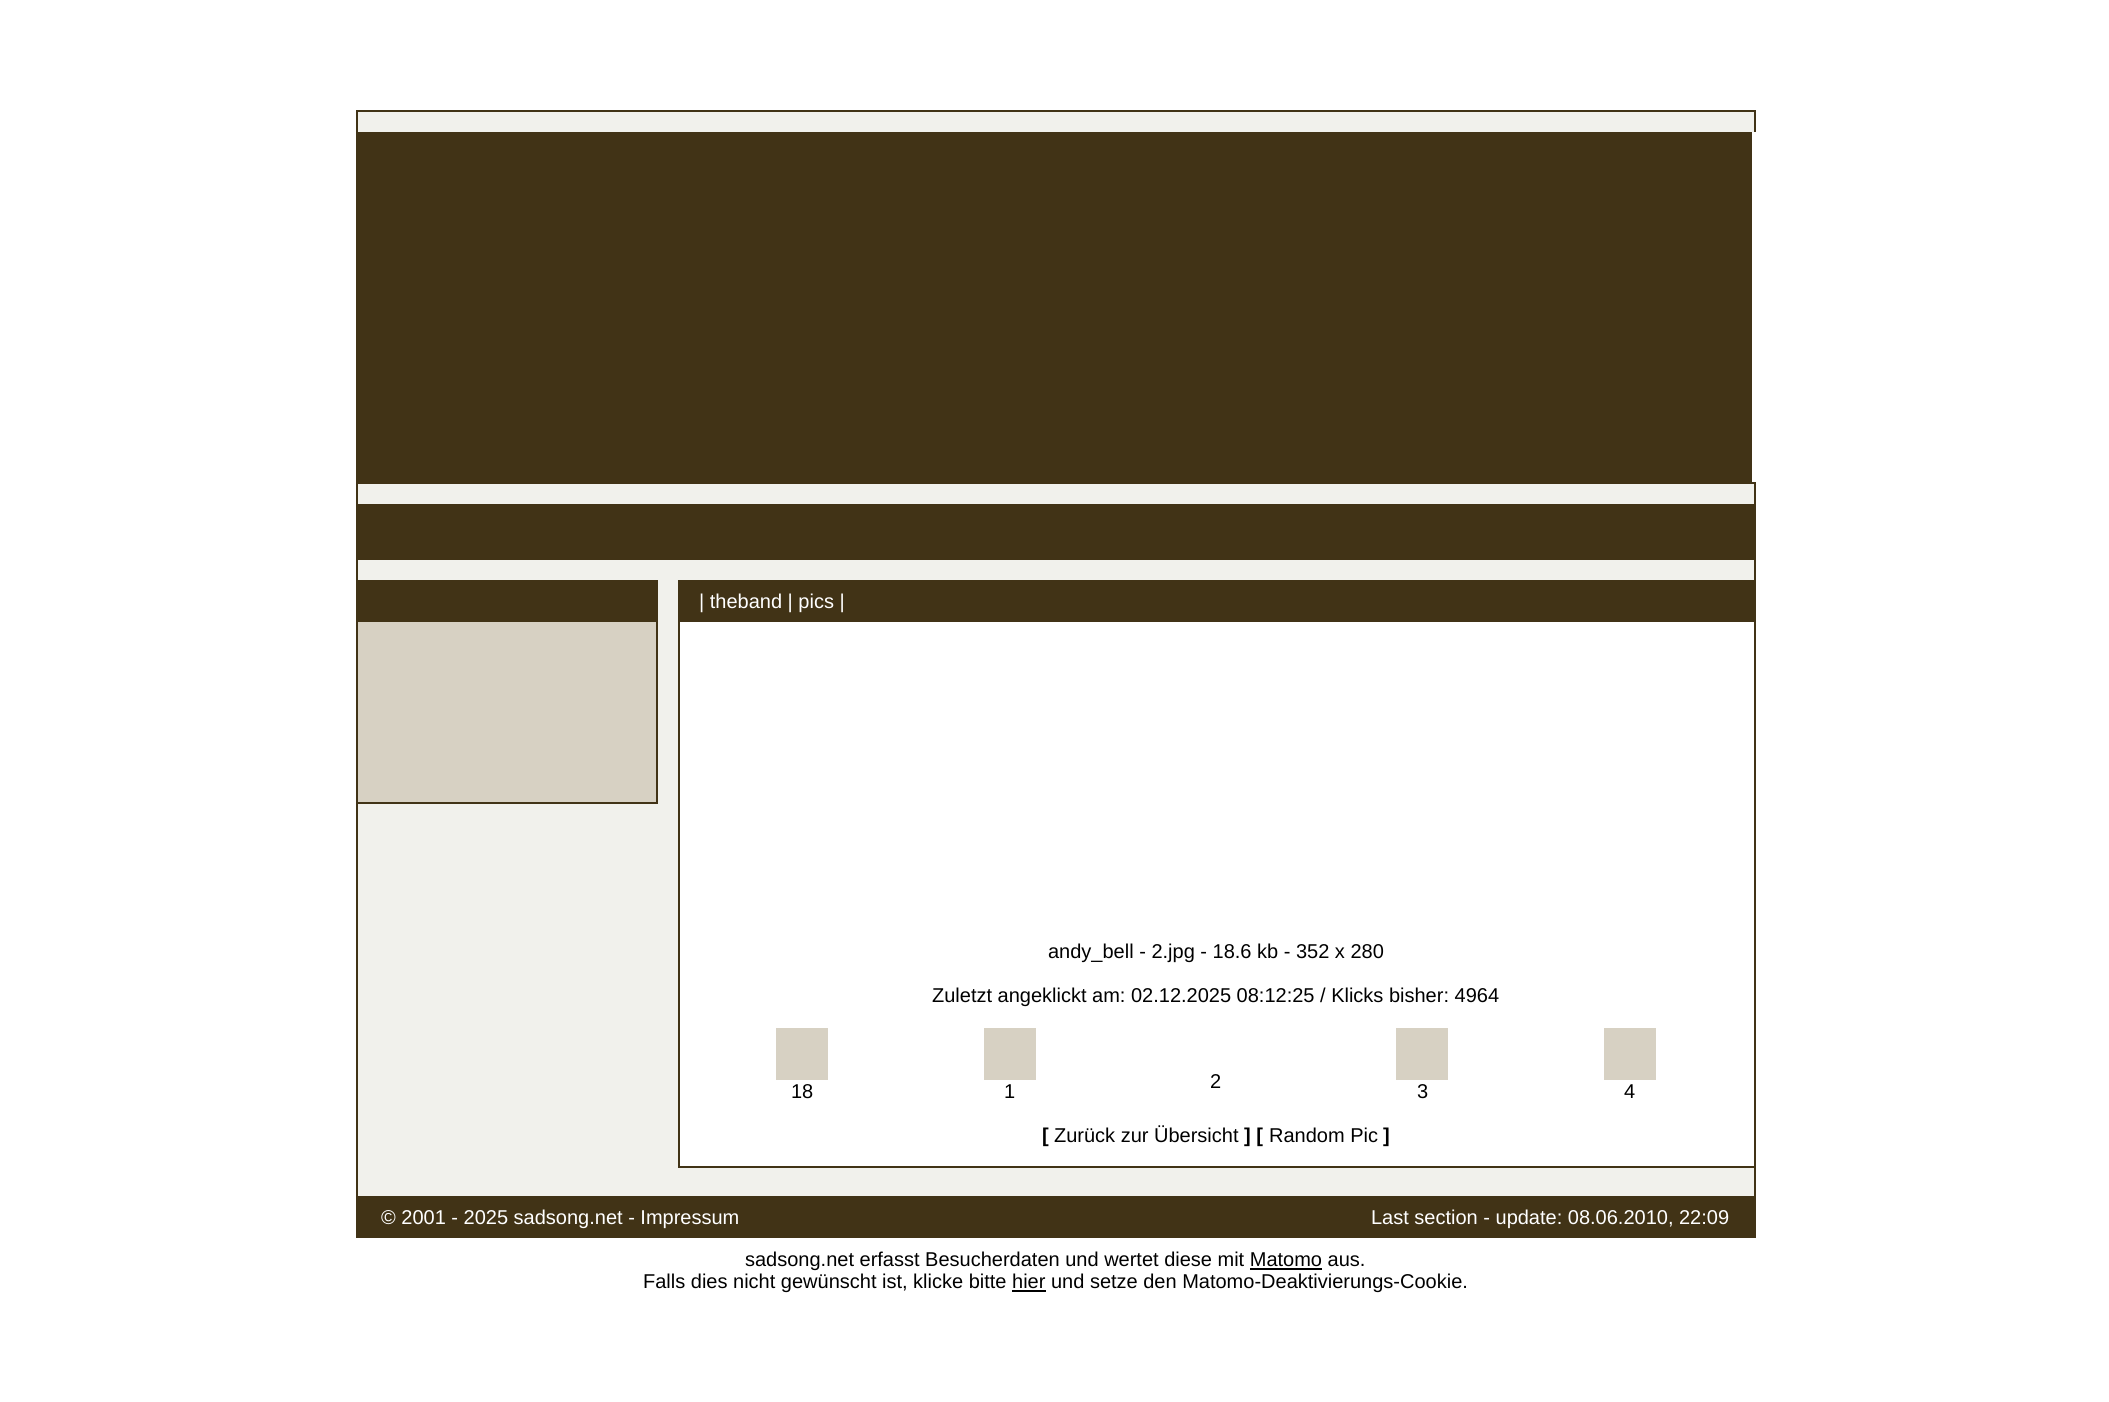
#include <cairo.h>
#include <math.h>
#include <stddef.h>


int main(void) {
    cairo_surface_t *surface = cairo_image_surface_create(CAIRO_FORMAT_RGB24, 2109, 1402);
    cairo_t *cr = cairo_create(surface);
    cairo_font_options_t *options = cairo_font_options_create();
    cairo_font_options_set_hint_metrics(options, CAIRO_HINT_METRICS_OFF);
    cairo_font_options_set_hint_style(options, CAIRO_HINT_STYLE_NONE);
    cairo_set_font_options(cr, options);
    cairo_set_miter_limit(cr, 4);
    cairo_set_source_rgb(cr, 1, 1, 1);
    cairo_paint(cr);
    cairo_set_source_rgb(cr, 0.945, 0.945, 0.922);
    cairo_rectangle(cr, 358, 112, 1396, 20);
    cairo_fill(cr);
    cairo_set_source_rgb(cr, 0.255, 0.2, 0.086);
    cairo_rectangle(cr, 356, 110, 1400, 2);
    cairo_fill(cr);
    cairo_rectangle(cr, 1754, 110, 2, 22);
    cairo_fill(cr);
    cairo_rectangle(cr, 356, 110, 2, 22);
    cairo_fill(cr);
    cairo_rectangle(cr, 356, 132, 1396, 350);
    cairo_fill(cr);
    cairo_set_source_rgb(cr, 0.945, 0.945, 0.922);
    cairo_rectangle(cr, 358, 484, 1396, 20);
    cairo_fill(cr);
    cairo_set_source_rgb(cr, 0.255, 0.2, 0.086);
    cairo_rectangle(cr, 356, 482, 1400, 2);
    cairo_fill(cr);
    cairo_rectangle(cr, 1754, 482, 2, 22);
    cairo_fill(cr);
    cairo_rectangle(cr, 356, 482, 2, 22);
    cairo_fill(cr);
    cairo_rectangle(cr, 356, 504, 1400, 56);
    cairo_fill(cr);
    cairo_rectangle(cr, 1754, 558, 2, 22);
    cairo_fill(cr);
    cairo_set_source_rgb(cr, 0.945, 0.945, 0.922);
    cairo_rectangle(cr, 358, 560, 1396, 636);
    cairo_fill(cr);
    cairo_set_source_rgb(cr, 0.255, 0.2, 0.086);
    cairo_rectangle(cr, 1754, 622, 2, 574);
    cairo_fill(cr);
    cairo_rectangle(cr, 356, 558, 2, 638);
    cairo_fill(cr);
    cairo_rectangle(cr, 358, 580, 300, 2);
    cairo_fill(cr);
    cairo_rectangle(cr, 656, 580, 2, 224);
    cairo_fill(cr);
    cairo_rectangle(cr, 358, 802, 300, 2);
    cairo_fill(cr);
    cairo_rectangle(cr, 358, 582, 298, 40);
    cairo_fill(cr);
    cairo_set_source_rgb(cr, 0.843, 0.82, 0.765);
    cairo_rectangle(cr, 358, 622, 298, 180);
    cairo_fill(cr);
    cairo_set_source_rgb(cr, 0.255, 0.2, 0.086);
    cairo_rectangle(cr, 678, 580, 1078, 2);
    cairo_fill(cr);
    cairo_rectangle(cr, 678, 1166, 1078, 2);
    cairo_fill(cr);
    cairo_rectangle(cr, 678, 580, 2, 588);
    cairo_fill(cr);
    cairo_rectangle(cr, 680, 582, 1076, 40);
    cairo_fill(cr);
    cairo_select_font_face(cr, "Liberation Sans", CAIRO_FONT_SLANT_NORMAL, CAIRO_FONT_WEIGHT_NORMAL);
    cairo_set_font_size(cr, 20);
    cairo_set_source_rgb(cr, 1, 1, 1);
    cairo_move_to(cr, 699, 608);
    cairo_show_text(cr, "| theband | pics |");
    cairo_rectangle(cr, 680, 622, 1074, 544);
    cairo_fill(cr);
    cairo_set_source_rgb(cr, 0, 0, 0);
    cairo_move_to(cr, 1048, 958);
    cairo_show_text(cr, "andy_bell - 2.jpg - 18.6 kb - 352 x 280");
    cairo_move_to(cr, 932, 1002);
    cairo_show_text(cr, "Zuletzt angeklickt am: 02.12.2025 08:12:25 / Klicks bisher: 4964");
    cairo_move_to(cr, 1210, 1088);
    cairo_show_text(cr, "2");
    cairo_set_source_rgb(cr, 0.843, 0.82, 0.765);
    cairo_rectangle(cr, 776, 1028, 52, 52);
    cairo_fill(cr);
    cairo_set_source_rgb(cr, 0, 0, 0);
    cairo_move_to(cr, 791, 1098);
    cairo_show_text(cr, "18");
    cairo_set_source_rgb(cr, 0.843, 0.82, 0.765);
    cairo_rectangle(cr, 984, 1028, 52, 52);
    cairo_fill(cr);
    cairo_set_source_rgb(cr, 0, 0, 0);
    cairo_move_to(cr, 1004, 1098);
    cairo_show_text(cr, "1");
    cairo_set_source_rgb(cr, 0.843, 0.82, 0.765);
    cairo_rectangle(cr, 1396, 1028, 52, 52);
    cairo_fill(cr);
    cairo_set_source_rgb(cr, 0, 0, 0);
    cairo_move_to(cr, 1417, 1098);
    cairo_show_text(cr, "3");
    cairo_set_source_rgb(cr, 0.843, 0.82, 0.765);
    cairo_rectangle(cr, 1604, 1028, 52, 52);
    cairo_fill(cr);
    cairo_set_source_rgb(cr, 0, 0, 0);
    cairo_move_to(cr, 1624, 1098);
    cairo_show_text(cr, "4");
    cairo_select_font_face(cr, "Liberation Sans", CAIRO_FONT_SLANT_NORMAL, CAIRO_FONT_WEIGHT_BOLD);
    cairo_move_to(cr, 1042, 1142);
    cairo_show_text(cr, "[");
    cairo_select_font_face(cr, "Liberation Sans", CAIRO_FONT_SLANT_NORMAL, CAIRO_FONT_WEIGHT_NORMAL);
    cairo_move_to(cr, 1054, 1142);
    cairo_show_text(cr, "Zurück zur Übersicht");
    cairo_select_font_face(cr, "Liberation Sans", CAIRO_FONT_SLANT_NORMAL, CAIRO_FONT_WEIGHT_BOLD);
    cairo_move_to(cr, 1244, 1142);
    cairo_show_text(cr, "] [");
    cairo_select_font_face(cr, "Liberation Sans", CAIRO_FONT_SLANT_NORMAL, CAIRO_FONT_WEIGHT_NORMAL);
    cairo_move_to(cr, 1269, 1142);
    cairo_show_text(cr, "Random Pic");
    cairo_select_font_face(cr, "Liberation Sans", CAIRO_FONT_SLANT_NORMAL, CAIRO_FONT_WEIGHT_BOLD);
    cairo_move_to(cr, 1383, 1142);
    cairo_show_text(cr, "]");
    cairo_set_source_rgb(cr, 0.255, 0.2, 0.086);
    cairo_rectangle(cr, 356, 1196, 1400, 42);
    cairo_fill(cr);
    cairo_select_font_face(cr, "Liberation Sans", CAIRO_FONT_SLANT_NORMAL, CAIRO_FONT_WEIGHT_NORMAL);
    cairo_set_source_rgb(cr, 1, 1, 1);
    cairo_move_to(cr, 381, 1224);
    cairo_show_text(cr, "© 2001 - 2025 sadsong.net - Impressum");
    cairo_move_to(cr, 1371, 1224);
    cairo_show_text(cr, "Last section - update: 08.06.2010, 22:09");
    cairo_set_source_rgb(cr, 0, 0, 0);
    cairo_move_to(cr, 745, 1266);
    cairo_show_text(cr, "sadsong.net erfasst Besucherdaten und wertet diese mit Matomo aus.");
    cairo_rectangle(cr, 1250, 1268, 72, 2);
    cairo_fill(cr);
    cairo_move_to(cr, 643, 1288);
    cairo_show_text(cr, "Falls dies nicht gewünscht ist, klicke bitte hier und setze den Matomo-Deaktivierungs-Cookie.");
    cairo_rectangle(cr, 1012, 1290, 34, 2);
    cairo_fill(cr);
    cairo_surface_write_to_png(surface, "page.png");
    cairo_font_options_destroy(options);
    cairo_destroy(cr);
    cairo_surface_destroy(surface);
    return 0;
}
